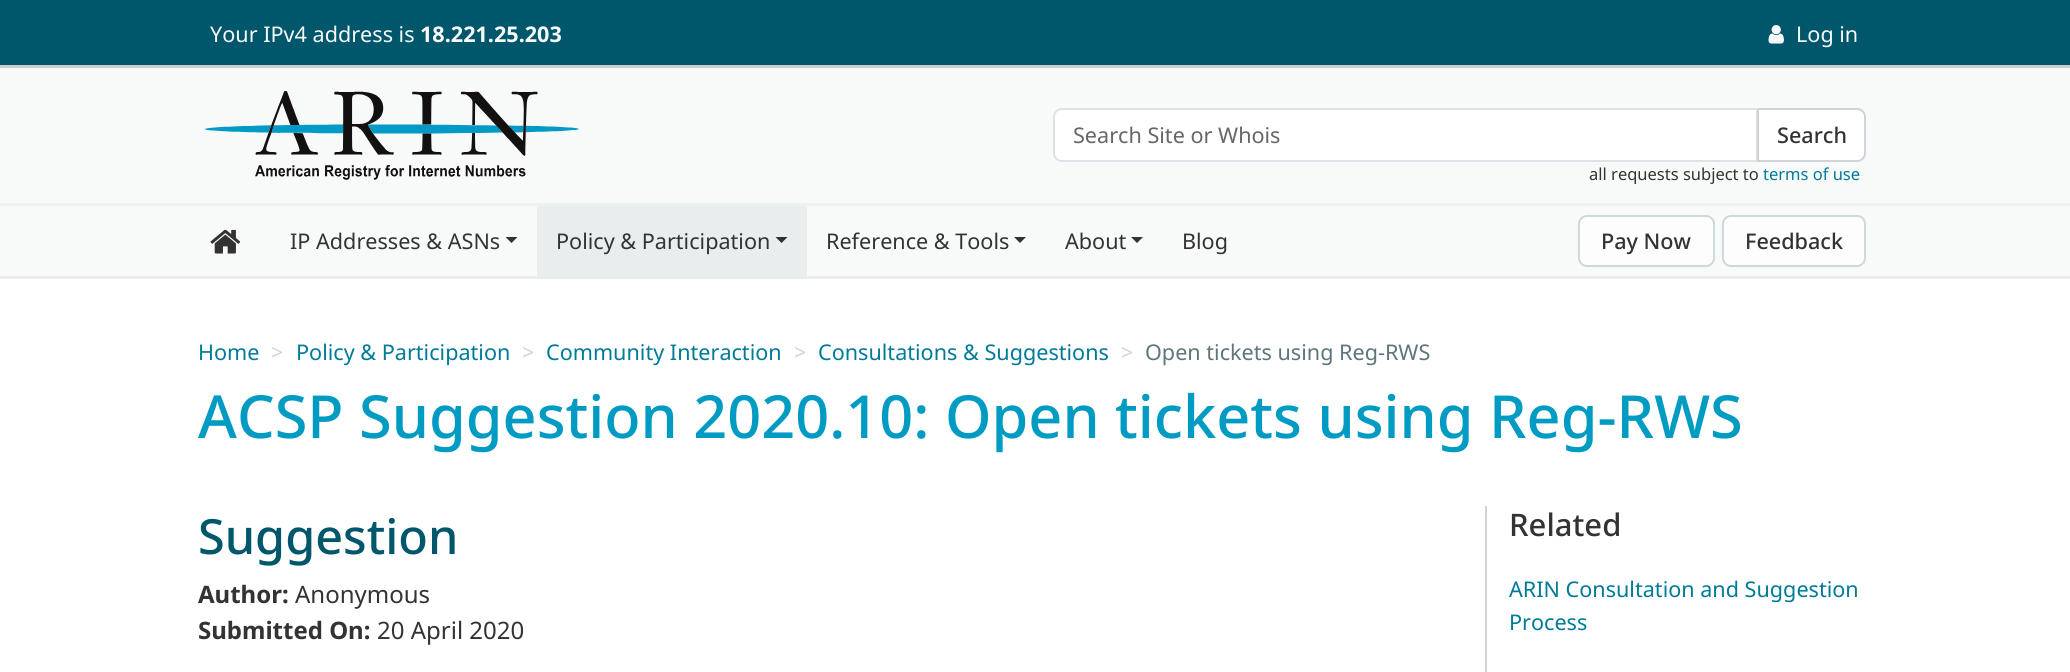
#include <cairo.h>
#include <math.h>
#include <stddef.h>


static void round_rect(cairo_t *cr, double x, double y, double w, double h, double r) {
    cairo_new_sub_path(cr);
    cairo_arc(cr, x + w - r, y + h - r, r, 0, M_PI / 2);
    cairo_arc(cr, x + r, y + h - r, r, M_PI / 2, M_PI);
    cairo_arc(cr, x + r, y + r, r, M_PI, 1.5 * M_PI);
    cairo_arc(cr, x + w - r, y + r, r, 1.5 * M_PI, 2 * M_PI);
    cairo_close_path(cr);
}

static void picture(cairo_t *cr, const char *path, double x, double y, double w, double h) {
    cairo_surface_t *image = cairo_image_surface_create_from_png(path);
    cairo_save(cr);
    cairo_set_source_surface(cr, image, x, y);
    cairo_rectangle(cr, x, y, w, h);
    cairo_fill(cr);
    cairo_restore(cr);
    cairo_surface_destroy(image);
}

int main(void) {
    cairo_surface_t *surface = cairo_image_surface_create(CAIRO_FORMAT_RGB24, 2070, 672);
    cairo_t *cr = cairo_create(surface);
    cairo_font_options_t *options = cairo_font_options_create();
    cairo_font_options_set_hint_metrics(options, CAIRO_HINT_METRICS_OFF);
    cairo_font_options_set_hint_style(options, CAIRO_HINT_STYLE_NONE);
    cairo_set_font_options(cr, options);
    cairo_set_miter_limit(cr, 4);
    cairo_set_source_rgb(cr, 1, 1, 1);
    cairo_paint(cr);
    cairo_set_source_rgb(cr, 0, 0.337, 0.42);
    cairo_rectangle(cr, 0, 0, 2070, 65);
    cairo_fill(cr);
    cairo_set_source_rgb(cr, 0.8, 0.8, 0.8);
    cairo_rectangle(cr, 0, 65, 2070, 3);
    cairo_fill(cr);
    cairo_select_font_face(cr, "Noto Sans", CAIRO_FONT_SLANT_NORMAL, CAIRO_FONT_WEIGHT_NORMAL);
    cairo_set_font_size(cr, 21.6);
    cairo_set_source_rgb(cr, 0.969, 0.973, 0.976);
    cairo_move_to(cr, 210, 42);
    cairo_show_text(cr, "Your IPv4 address is");
    cairo_select_font_face(cr, "Noto Sans", CAIRO_FONT_SLANT_NORMAL, CAIRO_FONT_WEIGHT_BOLD);
    cairo_move_to(cr, 420, 42);
    cairo_show_text(cr, "18.221.25.203");
    picture(cr, "img1.png", 1768, 25, 16, 19);
    cairo_select_font_face(cr, "Noto Sans", CAIRO_FONT_SLANT_NORMAL, CAIRO_FONT_WEIGHT_NORMAL);
    cairo_move_to(cr, 1796, 42);
    cairo_show_text(cr, "Log in");
    cairo_rectangle(cr, 0, 68, 2070, 135);
    cairo_fill(cr);
    picture(cr, "img2.png", 204, 91, 375, 89);
    cairo_set_source_rgb(cr, 1, 1, 1);
    cairo_new_path(cr);
    cairo_move_to(cr, 1062, 109);
    cairo_line_to(cr, 1757, 109);
    cairo_line_to(cr, 1757, 161);
    cairo_line_to(cr, 1062, 161);
    cairo_curve_to(cr, 1057.5, 161, 1054, 157.5, 1054, 153);
    cairo_line_to(cr, 1054, 117);
    cairo_curve_to(cr, 1054, 112.5, 1057.5, 109, 1062, 109);
    cairo_close_path(cr);
    cairo_fill_preserve(cr);
    cairo_set_source_rgb(cr, 0.871, 0.886, 0.902);
    cairo_stroke(cr);
    cairo_set_source_rgb(cr, 0.4, 0.4, 0.4);
    cairo_move_to(cr, 1073, 143);
    cairo_show_text(cr, "Search Site or Whois");
    cairo_set_source_rgb(cr, 1, 1, 1);
    cairo_new_path(cr);
    cairo_move_to(cr, 1758, 109);
    cairo_line_to(cr, 1857, 109);
    cairo_curve_to(cr, 1861.5, 109, 1865, 112.5, 1865, 117);
    cairo_line_to(cr, 1865, 153);
    cairo_curve_to(cr, 1865, 157.5, 1861.5, 161, 1857, 161);
    cairo_line_to(cr, 1758, 161);
    cairo_close_path(cr);
    cairo_fill_preserve(cr);
    cairo_set_source_rgb(cr, 0.808, 0.831, 0.855);
    cairo_stroke(cr);
    cairo_select_font_face(cr, "Noto Sans Medium", CAIRO_FONT_SLANT_NORMAL, CAIRO_FONT_WEIGHT_NORMAL);
    cairo_set_source_rgb(cr, 0.2, 0.2, 0.2);
    cairo_move_to(cr, 1777, 143);
    cairo_show_text(cr, "Search");
    cairo_select_font_face(cr, "Noto Sans", CAIRO_FONT_SLANT_NORMAL, CAIRO_FONT_WEIGHT_NORMAL);
    cairo_set_font_size(cr, 16.5);
    cairo_move_to(cr, 1589, 180);
    cairo_show_text(cr, "all requests subject to");
    cairo_set_source_rgb(cr, 0, 0.478, 0.6);
    cairo_move_to(cr, 1763, 180);
    cairo_show_text(cr, "terms of use");
    cairo_set_source_rgb(cr, 0.969, 0.973, 0.976);
    cairo_rectangle(cr, 0, 206, 2070, 70);
    cairo_fill(cr);
    cairo_set_source_rgb(cr, 0.933, 0.945, 0.949);
    cairo_rectangle(cr, 0, 203, 2070, 3);
    cairo_fill(cr);
    cairo_set_source_rgb(cr, 0.91, 0.929, 0.933);
    cairo_rectangle(cr, 0, 276, 2070, 3);
    cairo_fill(cr);
    picture(cr, "img3.png", 210, 229, 31, 25);
    cairo_set_font_size(cr, 21.6);
    cairo_set_source_rgb(cr, 0.2, 0.2, 0.2);
    cairo_move_to(cr, 290, 249);
    cairo_show_text(cr, "IP Addresses & ASNs");
    cairo_set_source_rgb(cr, 0.192, 0.196, 0.196);
    cairo_new_path(cr);
    cairo_move_to(cr, 505.5, 237);
    cairo_line_to(cr, 517.5, 237);
    cairo_line_to(cr, 511.5, 243);
    cairo_close_path(cr);
    cairo_fill(cr);
    cairo_set_source_rgb(cr, 0.91, 0.929, 0.933);
    cairo_rectangle(cr, 537, 206, 270, 70);
    cairo_fill(cr);
    cairo_set_source_rgb(cr, 0.2, 0.2, 0.2);
    cairo_move_to(cr, 556, 249);
    cairo_show_text(cr, "Policy & Participation");
    cairo_set_source_rgb(cr, 0.18, 0.184, 0.188);
    cairo_new_path(cr);
    cairo_move_to(cr, 775.5, 237);
    cairo_line_to(cr, 787.5, 237);
    cairo_line_to(cr, 781.5, 243);
    cairo_close_path(cr);
    cairo_fill(cr);
    cairo_set_source_rgb(cr, 0.2, 0.2, 0.2);
    cairo_move_to(cr, 826, 249);
    cairo_show_text(cr, "Reference & Tools");
    cairo_set_source_rgb(cr, 0.192, 0.196, 0.196);
    cairo_new_path(cr);
    cairo_move_to(cr, 1014, 237);
    cairo_line_to(cr, 1026, 237);
    cairo_line_to(cr, 1020, 243);
    cairo_close_path(cr);
    cairo_fill(cr);
    cairo_set_source_rgb(cr, 0.2, 0.2, 0.2);
    cairo_move_to(cr, 1065, 249);
    cairo_show_text(cr, "About");
    cairo_set_source_rgb(cr, 0.192, 0.196, 0.196);
    cairo_new_path(cr);
    cairo_move_to(cr, 1131, 237);
    cairo_line_to(cr, 1143, 237);
    cairo_line_to(cr, 1137, 243);
    cairo_close_path(cr);
    cairo_fill(cr);
    cairo_set_source_rgb(cr, 0.2, 0.2, 0.2);
    cairo_move_to(cr, 1182, 249);
    cairo_show_text(cr, "Blog");
    cairo_set_source_rgb(cr, 0.992, 0.992, 0.992);
    round_rect(cr, 1579, 216, 135, 50, 8);
    cairo_fill_preserve(cr);
    cairo_set_source_rgb(cr, 0.808, 0.843, 0.855);
    cairo_stroke(cr);
    cairo_select_font_face(cr, "Noto Sans Medium", CAIRO_FONT_SLANT_NORMAL, CAIRO_FONT_WEIGHT_NORMAL);
    cairo_set_source_rgb(cr, 0.2, 0.2, 0.2);
    cairo_move_to(cr, 1601, 249);
    cairo_show_text(cr, "Pay Now");
    cairo_set_source_rgb(cr, 0.992, 0.992, 0.992);
    round_rect(cr, 1723, 216, 142, 50, 8);
    cairo_fill_preserve(cr);
    cairo_set_source_rgb(cr, 0.808, 0.843, 0.855);
    cairo_stroke(cr);
    cairo_set_source_rgb(cr, 0.2, 0.2, 0.2);
    cairo_move_to(cr, 1745, 249);
    cairo_show_text(cr, "Feedback");
    cairo_select_font_face(cr, "Noto Sans", CAIRO_FONT_SLANT_NORMAL, CAIRO_FONT_WEIGHT_NORMAL);
    cairo_set_source_rgb(cr, 0, 0.478, 0.6);
    cairo_move_to(cr, 198, 360);
    cairo_show_text(cr, "Home");
    cairo_set_source_rgb(cr, 0.808, 0.831, 0.855);
    cairo_move_to(cr, 271, 360);
    cairo_show_text(cr, ">");
    cairo_set_source_rgb(cr, 0, 0.478, 0.6);
    cairo_move_to(cr, 296, 360);
    cairo_show_text(cr, "Policy & Participation");
    cairo_set_source_rgb(cr, 0.808, 0.831, 0.855);
    cairo_move_to(cr, 522, 360);
    cairo_show_text(cr, ">");
    cairo_set_source_rgb(cr, 0, 0.478, 0.6);
    cairo_move_to(cr, 546, 360);
    cairo_show_text(cr, "Community Interaction");
    cairo_set_source_rgb(cr, 0.808, 0.831, 0.855);
    cairo_move_to(cr, 794, 360);
    cairo_show_text(cr, ">");
    cairo_set_source_rgb(cr, 0, 0.478, 0.6);
    cairo_move_to(cr, 818, 360);
    cairo_show_text(cr, "Consultations & Suggestions");
    cairo_set_source_rgb(cr, 0.808, 0.831, 0.855);
    cairo_move_to(cr, 1121, 360);
    cairo_show_text(cr, ">");
    cairo_set_source_rgb(cr, 0.369, 0.459, 0.486);
    cairo_move_to(cr, 1145, 360);
    cairo_show_text(cr, "Open tickets using Reg-RWS");
    cairo_select_font_face(cr, "Noto Sans Medium", CAIRO_FONT_SLANT_NORMAL, CAIRO_FONT_WEIGHT_NORMAL);
    cairo_set_font_size(cr, 59.4);
    cairo_set_source_rgb(cr, 0, 0.608, 0.761);
    cairo_move_to(cr, 198, 438);
    cairo_show_text(cr, "ACSP Suggestion 2020.10: Open tickets using Reg-RWS");
    cairo_set_font_size(cr, 48.5);
    cairo_set_source_rgb(cr, 0, 0.337, 0.42);
    cairo_move_to(cr, 198, 554);
    cairo_show_text(cr, "Suggestion");
    cairo_select_font_face(cr, "Noto Sans", CAIRO_FONT_SLANT_NORMAL, CAIRO_FONT_WEIGHT_BOLD);
    cairo_set_font_size(cr, 24);
    cairo_set_source_rgb(cr, 0.2, 0.2, 0.2);
    cairo_move_to(cr, 198, 603);
    cairo_show_text(cr, "Author:");
    cairo_select_font_face(cr, "Noto Sans", CAIRO_FONT_SLANT_NORMAL, CAIRO_FONT_WEIGHT_NORMAL);
    cairo_move_to(cr, 295, 603);
    cairo_show_text(cr, "Anonymous");
    cairo_select_font_face(cr, "Noto Sans", CAIRO_FONT_SLANT_NORMAL, CAIRO_FONT_WEIGHT_BOLD);
    cairo_move_to(cr, 198, 639);
    cairo_show_text(cr, "Submitted On:");
    cairo_select_font_face(cr, "Noto Sans", CAIRO_FONT_SLANT_NORMAL, CAIRO_FONT_WEIGHT_NORMAL);
    cairo_move_to(cr, 377, 639);
    cairo_show_text(cr, "20 April 2020");
    cairo_set_source_rgb(cr, 0.808, 0.831, 0.855);
    cairo_rectangle(cr, 1485, 506, 2, 166);
    cairo_fill(cr);
    cairo_select_font_face(cr, "Noto Sans Medium", CAIRO_FONT_SLANT_NORMAL, CAIRO_FONT_WEIGHT_NORMAL);
    cairo_set_font_size(cr, 31);
    cairo_set_source_rgb(cr, 0.2, 0.2, 0.2);
    cairo_move_to(cr, 1509, 536);
    cairo_show_text(cr, "Related");
    cairo_select_font_face(cr, "Noto Sans", CAIRO_FONT_SLANT_NORMAL, CAIRO_FONT_WEIGHT_NORMAL);
    cairo_set_font_size(cr, 21.6);
    cairo_set_source_rgb(cr, 0, 0.478, 0.6);
    cairo_move_to(cr, 1509, 597);
    cairo_show_text(cr, "ARIN Consultation and Suggestion");
    cairo_move_to(cr, 1509, 630);
    cairo_show_text(cr, "Process");
    cairo_surface_write_to_png(surface, "page.png");
    cairo_font_options_destroy(options);
    cairo_destroy(cr);
    cairo_surface_destroy(surface);
    return 0;
}
